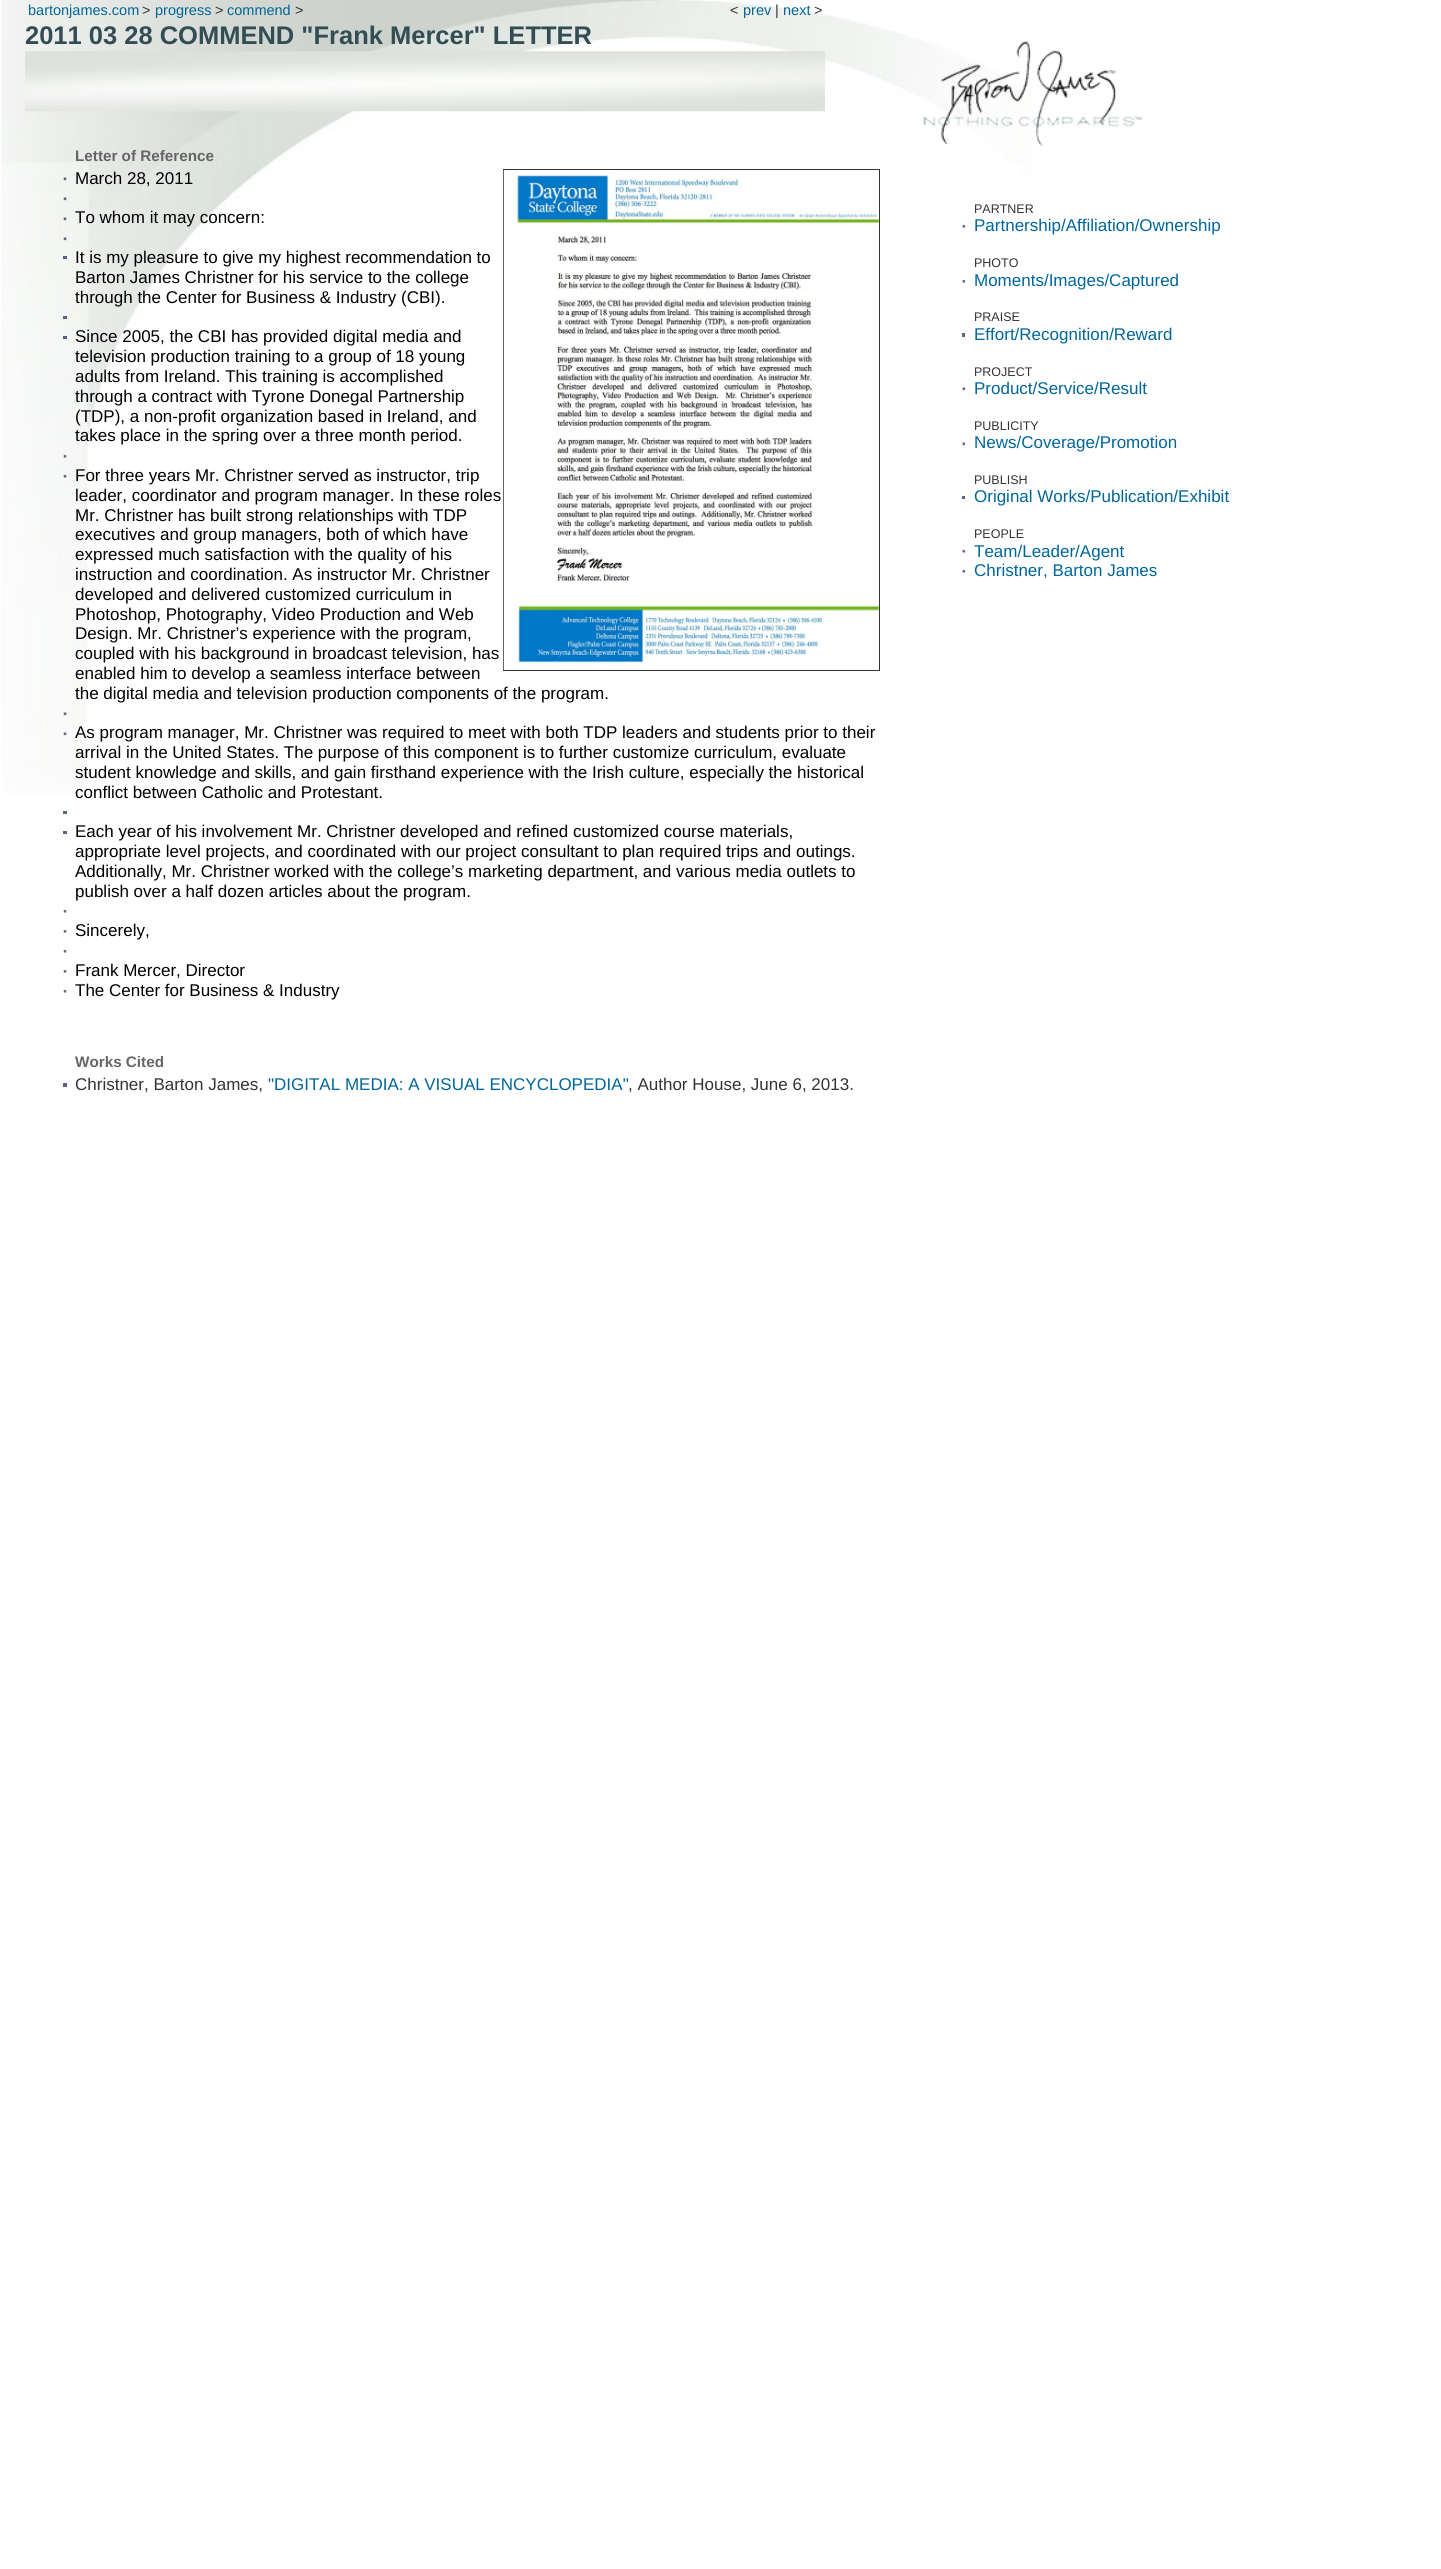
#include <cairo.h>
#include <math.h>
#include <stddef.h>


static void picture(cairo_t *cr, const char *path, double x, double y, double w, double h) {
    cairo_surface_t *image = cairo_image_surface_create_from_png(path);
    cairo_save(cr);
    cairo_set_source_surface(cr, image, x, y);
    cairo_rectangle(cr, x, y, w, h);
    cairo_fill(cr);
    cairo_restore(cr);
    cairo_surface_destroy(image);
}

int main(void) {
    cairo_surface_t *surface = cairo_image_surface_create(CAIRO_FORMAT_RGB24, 1441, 2569);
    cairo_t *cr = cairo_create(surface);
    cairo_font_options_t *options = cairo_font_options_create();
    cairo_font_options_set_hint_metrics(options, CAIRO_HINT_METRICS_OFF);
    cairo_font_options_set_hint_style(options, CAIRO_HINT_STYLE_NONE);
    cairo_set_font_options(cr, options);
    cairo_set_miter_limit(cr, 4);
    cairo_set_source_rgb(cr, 1, 1, 1);
    cairo_paint(cr);
    picture(cr, "img1.png", 1, 0, 1032, 794);
    cairo_select_font_face(cr, "Liberation Sans", CAIRO_FONT_SLANT_NORMAL, CAIRO_FONT_WEIGHT_NORMAL);
    cairo_set_font_size(cr, 14.5);
    cairo_set_source_rgb(cr, 0, 0.4, 0.6);
    cairo_move_to(cr, 28, 15);
    cairo_show_text(cr, "bartonjames.com");
    cairo_set_source_rgb(cr, 0.2, 0.2, 0.2);
    cairo_move_to(cr, 142, 15);
    cairo_show_text(cr, ">");
    cairo_set_source_rgb(cr, 0, 0.4, 0.6);
    cairo_move_to(cr, 155, 15);
    cairo_show_text(cr, "progress");
    cairo_set_source_rgb(cr, 0.2, 0.2, 0.2);
    cairo_move_to(cr, 215, 15);
    cairo_show_text(cr, ">");
    cairo_set_source_rgb(cr, 0, 0.4, 0.6);
    cairo_move_to(cr, 227, 15);
    cairo_show_text(cr, "commend");
    cairo_set_source_rgb(cr, 0.2, 0.2, 0.2);
    cairo_move_to(cr, 295, 15);
    cairo_show_text(cr, ">");
    cairo_move_to(cr, 730, 15);
    cairo_show_text(cr, "<");
    cairo_set_source_rgb(cr, 0, 0.4, 0.6);
    cairo_move_to(cr, 743, 15);
    cairo_show_text(cr, "prev");
    cairo_set_source_rgb(cr, 0.2, 0.2, 0.2);
    cairo_move_to(cr, 775, 15);
    cairo_show_text(cr, "|");
    cairo_set_source_rgb(cr, 0, 0.4, 0.6);
    cairo_move_to(cr, 783, 15);
    cairo_show_text(cr, "next");
    cairo_set_source_rgb(cr, 0.2, 0.2, 0.2);
    cairo_move_to(cr, 814, 15);
    cairo_show_text(cr, ">");
    cairo_select_font_face(cr, "Liberation Sans", CAIRO_FONT_SLANT_NORMAL, CAIRO_FONT_WEIGHT_BOLD);
    cairo_set_font_size(cr, 25.5);
    cairo_set_source_rgb(cr, 0.2, 0.302, 0.333);
    cairo_move_to(cr, 25, 44);
    cairo_show_text(cr, "2011 03 28 COMMEND \"Frank Mercer\" LETTER");
    picture(cr, "img2.png", 25, 51, 800, 61);
    cairo_set_font_size(cr, 15.25);
    cairo_set_source_rgb(cr, 0.4, 0.4, 0.4);
    cairo_move_to(cr, 75, 161);
    cairo_show_text(cr, "Letter of Reference");
    picture(cr, "img3.png", 63, 177, 4, 4);
    cairo_select_font_face(cr, "Liberation Sans", CAIRO_FONT_SLANT_NORMAL, CAIRO_FONT_WEIGHT_NORMAL);
    cairo_set_font_size(cr, 17);
    cairo_set_source_rgb(cr, 0, 0, 0);
    cairo_move_to(cr, 75, 184);
    cairo_show_text(cr, "March 28, 2011");
    cairo_rectangle(cr, 503.5, 169.5, 376, 501);
    cairo_set_source_rgb(cr, 0.2, 0.2, 0.2);
    cairo_set_line_width(cr, 1);
    cairo_stroke(cr);
    picture(cr, "img4.png", 503, 170, 376, 500);
    picture(cr, "img5.png", 63, 197, 4, 4);
    picture(cr, "img6.png", 63, 217, 4, 4);
    cairo_set_source_rgb(cr, 0, 0, 0);
    cairo_move_to(cr, 75, 223);
    cairo_show_text(cr, "To whom it may concern:");
    picture(cr, "img7.png", 63, 237, 4, 4);
    cairo_set_source_rgb(cr, 0.337, 0.384, 0.502);
    cairo_rectangle(cr, 63, 256, 4, 3);
    cairo_fill(cr);
    cairo_set_source_rgb(cr, 0, 0, 0);
    cairo_move_to(cr, 75, 263);
    cairo_show_text(cr, "It is my pleasure to give my highest recommendation to");
    cairo_move_to(cr, 75, 283);
    cairo_show_text(cr, "Barton James Christner for his service to the college");
    cairo_move_to(cr, 75, 303);
    cairo_show_text(cr, "through the Center for Business & Industry (CBI).");
    cairo_set_source_rgb(cr, 0.337, 0.384, 0.502);
    cairo_rectangle(cr, 63, 316, 4, 3);
    cairo_fill(cr);
    cairo_rectangle(cr, 63, 336, 4, 3);
    cairo_fill(cr);
    cairo_set_source_rgb(cr, 0, 0, 0);
    cairo_move_to(cr, 75, 342);
    cairo_show_text(cr, "Since 2005, the CBI has provided digital media and");
    cairo_move_to(cr, 75, 362);
    cairo_show_text(cr, "television production training to a group of 18 young");
    cairo_move_to(cr, 75, 382);
    cairo_show_text(cr, "adults from Ireland. This training is accomplished");
    cairo_move_to(cr, 75, 402);
    cairo_show_text(cr, "through a contract with Tyrone Donegal Partnership");
    cairo_move_to(cr, 75, 422);
    cairo_show_text(cr, "(TDP), a non-profit organization based in Ireland, and");
    cairo_move_to(cr, 75, 441);
    cairo_show_text(cr, "takes place in the spring over a three month period.");
    picture(cr, "img8.png", 63, 454, 4, 4);
    picture(cr, "img9.png", 63, 474, 4, 4);
    cairo_move_to(cr, 75, 481);
    cairo_show_text(cr, "For three years Mr. Christner served as instructor, trip");
    cairo_move_to(cr, 75, 501);
    cairo_show_text(cr, "leader, coordinator and program manager. In these roles");
    cairo_move_to(cr, 75, 521);
    cairo_show_text(cr, "Mr. Christner has built strong relationships with TDP");
    cairo_move_to(cr, 75, 540);
    cairo_show_text(cr, "executives and group managers, both of which have");
    cairo_move_to(cr, 75, 560);
    cairo_show_text(cr, "expressed much satisfaction with the quality of his");
    cairo_move_to(cr, 75, 580);
    cairo_show_text(cr, "instruction and coordination. As instructor Mr. Christner");
    cairo_move_to(cr, 75, 600);
    cairo_show_text(cr, "developed and delivered customized curriculum in");
    cairo_move_to(cr, 75, 620);
    cairo_show_text(cr, "Photoshop, Photography, Video Production and Web");
    cairo_move_to(cr, 75, 639);
    cairo_show_text(cr, "Design. Mr. Christner’s experience with the program,");
    cairo_move_to(cr, 75, 659);
    cairo_show_text(cr, "coupled with his background in broadcast television, has");
    cairo_move_to(cr, 75, 679);
    cairo_show_text(cr, "enabled him to develop a seamless interface between");
    cairo_move_to(cr, 75, 699);
    cairo_show_text(cr, "the digital media and television production components of the program.");
    picture(cr, "img10.png", 63, 712, 4, 4);
    picture(cr, "img10.png", 63, 732, 4, 4);
    cairo_move_to(cr, 75, 738);
    cairo_show_text(cr, "As program manager, Mr. Christner was required to meet with both TDP leaders and students prior to their");
    cairo_move_to(cr, 75, 758);
    cairo_show_text(cr, "arrival in the United States. The purpose of this component is to further customize curriculum, evaluate");
    cairo_move_to(cr, 75, 778);
    cairo_show_text(cr, "student knowledge and skills, and gain firsthand experience with the Irish culture, especially the historical");
    cairo_move_to(cr, 75, 798);
    cairo_show_text(cr, "conflict between Catholic and Protestant.");
    cairo_set_source_rgb(cr, 0.349, 0.396, 0.514);
    cairo_rectangle(cr, 63, 811, 4, 3);
    cairo_fill(cr);
    cairo_rectangle(cr, 63, 831, 4, 3);
    cairo_fill(cr);
    cairo_set_source_rgb(cr, 0, 0, 0);
    cairo_move_to(cr, 75, 837);
    cairo_show_text(cr, "Each year of his involvement Mr. Christner developed and refined customized course materials,");
    cairo_move_to(cr, 75, 857);
    cairo_show_text(cr, "appropriate level projects, and coordinated with our project consultant to plan required trips and outings.");
    cairo_move_to(cr, 75, 877);
    cairo_show_text(cr, "Additionally, Mr. Christner worked with the college’s marketing department, and various media outlets to");
    cairo_move_to(cr, 75, 897);
    cairo_show_text(cr, "publish over a half dozen articles about the program.");
    picture(cr, "img11.png", 63, 909, 4, 4);
    picture(cr, "img11.png", 63, 929, 4, 4);
    cairo_move_to(cr, 75, 936);
    cairo_show_text(cr, "Sincerely,");
    picture(cr, "img11.png", 63, 949, 4, 4);
    picture(cr, "img11.png", 63, 969, 4, 4);
    cairo_move_to(cr, 75, 976);
    cairo_show_text(cr, "Frank Mercer, Director");
    picture(cr, "img11.png", 63, 989, 4, 4);
    cairo_move_to(cr, 75, 996);
    cairo_show_text(cr, "The Center for Business & Industry");
    picture(cr, "img12.png", 923, 41, 220, 106);
    cairo_set_font_size(cr, 12.5);
    cairo_set_source_rgb(cr, 0.2, 0.2, 0.2);
    cairo_move_to(cr, 974, 213);
    cairo_show_text(cr, "PARTNER");
    picture(cr, "img13.png", 962, 224, 3, 4);
    cairo_set_font_size(cr, 17);
    cairo_set_source_rgb(cr, 0, 0.4, 0.6);
    cairo_move_to(cr, 974, 231);
    cairo_show_text(cr, "Partnership/Affiliation/Ownership");
    cairo_set_font_size(cr, 12.5);
    cairo_set_source_rgb(cr, 0.2, 0.2, 0.2);
    cairo_move_to(cr, 974, 267);
    cairo_show_text(cr, "PHOTO");
    picture(cr, "img13.png", 962, 279, 3, 4);
    cairo_set_font_size(cr, 17);
    cairo_set_source_rgb(cr, 0, 0.4, 0.6);
    cairo_move_to(cr, 974, 286);
    cairo_show_text(cr, "Moments/Images/Captured");
    cairo_set_font_size(cr, 12.5);
    cairo_set_source_rgb(cr, 0.2, 0.2, 0.2);
    cairo_move_to(cr, 974, 321);
    cairo_show_text(cr, "PRAISE");
    cairo_set_source_rgb(cr, 0.349, 0.396, 0.514);
    cairo_rectangle(cr, 962, 333, 3, 4);
    cairo_fill(cr);
    cairo_set_font_size(cr, 17);
    cairo_set_source_rgb(cr, 0, 0.4, 0.6);
    cairo_move_to(cr, 974, 340);
    cairo_show_text(cr, "Effort/Recognition/Reward");
    cairo_set_font_size(cr, 12.5);
    cairo_set_source_rgb(cr, 0.2, 0.2, 0.2);
    cairo_move_to(cr, 974, 376);
    cairo_show_text(cr, "PROJECT");
    picture(cr, "img14.png", 962, 387, 3, 4);
    cairo_set_font_size(cr, 17);
    cairo_set_source_rgb(cr, 0, 0.4, 0.6);
    cairo_move_to(cr, 974, 394);
    cairo_show_text(cr, "Product/Service/Result");
    cairo_set_font_size(cr, 12.5);
    cairo_set_source_rgb(cr, 0.2, 0.2, 0.2);
    cairo_move_to(cr, 974, 430);
    cairo_show_text(cr, "PUBLICITY");
    picture(cr, "img14.png", 962, 442, 3, 4);
    cairo_set_font_size(cr, 17);
    cairo_set_source_rgb(cr, 0, 0.4, 0.6);
    cairo_move_to(cr, 974, 448);
    cairo_show_text(cr, "News/Coverage/Promotion");
    cairo_set_font_size(cr, 12.5);
    cairo_set_source_rgb(cr, 0.2, 0.2, 0.2);
    cairo_move_to(cr, 974, 484);
    cairo_show_text(cr, "PUBLISH");
    cairo_set_source_rgb(cr, 0.349, 0.396, 0.514);
    cairo_rectangle(cr, 962, 496, 3, 3);
    cairo_fill(cr);
    cairo_set_font_size(cr, 17);
    cairo_set_source_rgb(cr, 0, 0.4, 0.6);
    cairo_move_to(cr, 974, 502);
    cairo_show_text(cr, "Original Works/Publication/Exhibit");
    cairo_set_font_size(cr, 12.5);
    cairo_set_source_rgb(cr, 0.2, 0.2, 0.2);
    cairo_move_to(cr, 974, 538);
    cairo_show_text(cr, "PEOPLE");
    picture(cr, "img13.png", 962, 549, 3, 4);
    cairo_set_font_size(cr, 17);
    cairo_set_source_rgb(cr, 0, 0.4, 0.6);
    cairo_move_to(cr, 974, 557);
    cairo_show_text(cr, "Team/Leader/Agent");
    picture(cr, "img13.png", 962, 569, 3, 4);
    cairo_move_to(cr, 974, 576);
    cairo_show_text(cr, "Christner, Barton James");
    cairo_select_font_face(cr, "Liberation Sans", CAIRO_FONT_SLANT_NORMAL, CAIRO_FONT_WEIGHT_BOLD);
    cairo_set_font_size(cr, 15.25);
    cairo_set_source_rgb(cr, 0.4, 0.4, 0.4);
    cairo_move_to(cr, 75, 1067);
    cairo_show_text(cr, "Works Cited");
    cairo_set_source_rgb(cr, 0.349, 0.396, 0.514);
    cairo_rectangle(cr, 63, 1083, 4, 4);
    cairo_fill(cr);
    cairo_select_font_face(cr, "Liberation Sans", CAIRO_FONT_SLANT_NORMAL, CAIRO_FONT_WEIGHT_NORMAL);
    cairo_set_font_size(cr, 17);
    cairo_set_source_rgb(cr, 0.2, 0.2, 0.2);
    cairo_move_to(cr, 75, 1090);
    cairo_show_text(cr, "Christner, Barton James,");
    cairo_set_source_rgb(cr, 0, 0.4, 0.6);
    cairo_move_to(cr, 268, 1090);
    cairo_show_text(cr, "\"DIGITAL MEDIA: A VISUAL ENCYCLOPEDIA\"");
    cairo_set_source_rgb(cr, 0.2, 0.2, 0.2);
    cairo_move_to(cr, 628, 1090);
    cairo_show_text(cr, ", Author House, June 6, 2013.");
    cairo_surface_write_to_png(surface, "page.png");
    cairo_font_options_destroy(options);
    cairo_destroy(cr);
    cairo_surface_destroy(surface);
    return 0;
}
